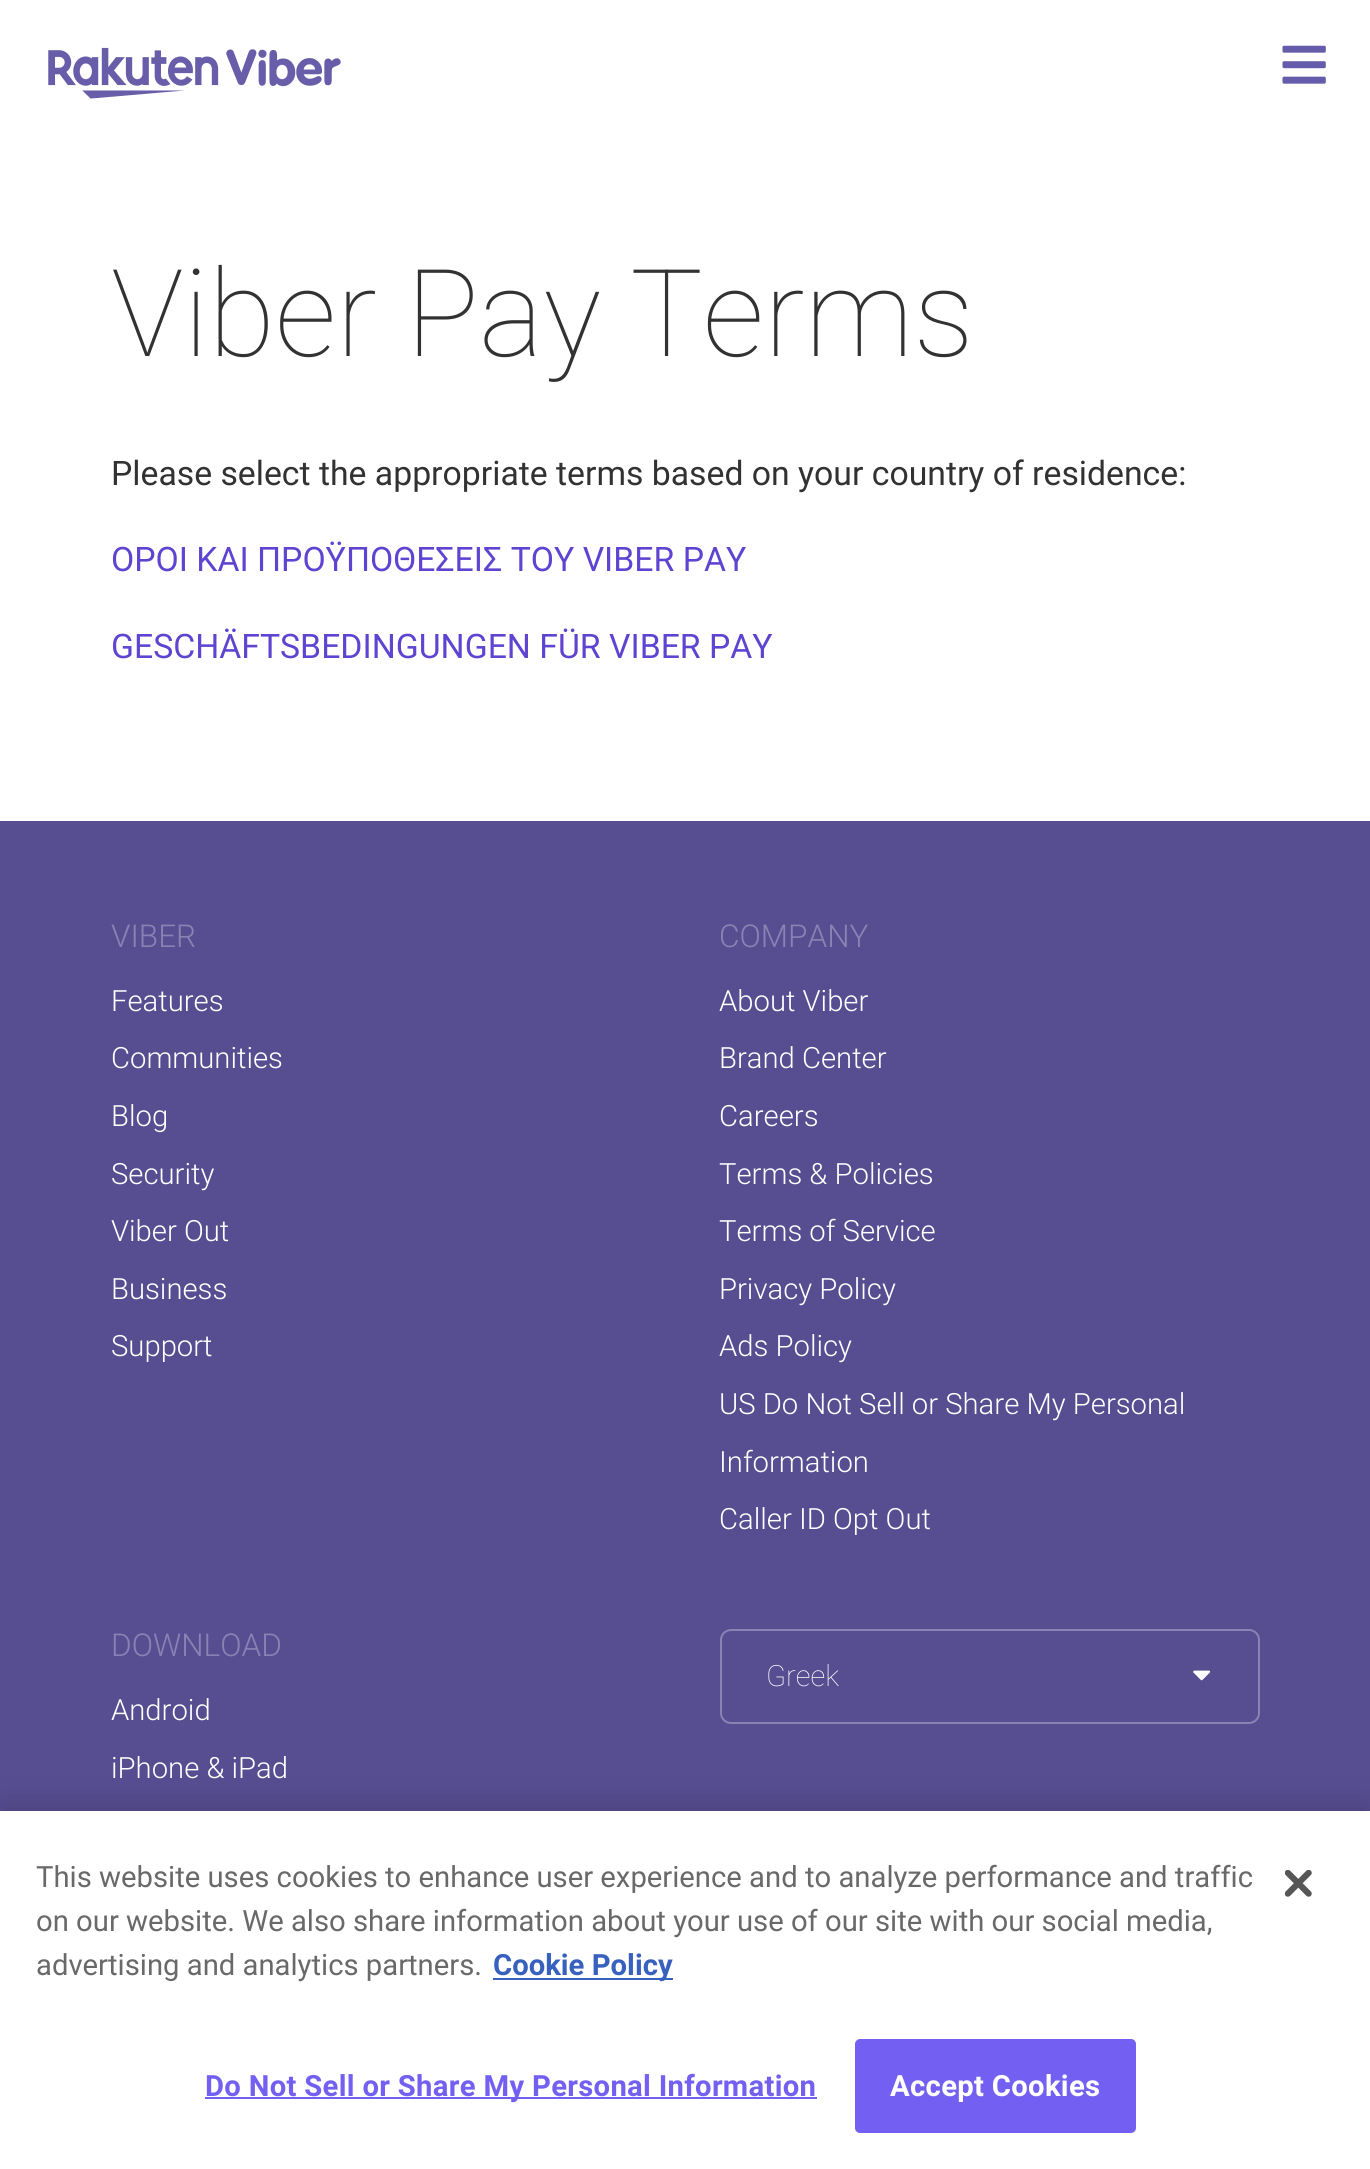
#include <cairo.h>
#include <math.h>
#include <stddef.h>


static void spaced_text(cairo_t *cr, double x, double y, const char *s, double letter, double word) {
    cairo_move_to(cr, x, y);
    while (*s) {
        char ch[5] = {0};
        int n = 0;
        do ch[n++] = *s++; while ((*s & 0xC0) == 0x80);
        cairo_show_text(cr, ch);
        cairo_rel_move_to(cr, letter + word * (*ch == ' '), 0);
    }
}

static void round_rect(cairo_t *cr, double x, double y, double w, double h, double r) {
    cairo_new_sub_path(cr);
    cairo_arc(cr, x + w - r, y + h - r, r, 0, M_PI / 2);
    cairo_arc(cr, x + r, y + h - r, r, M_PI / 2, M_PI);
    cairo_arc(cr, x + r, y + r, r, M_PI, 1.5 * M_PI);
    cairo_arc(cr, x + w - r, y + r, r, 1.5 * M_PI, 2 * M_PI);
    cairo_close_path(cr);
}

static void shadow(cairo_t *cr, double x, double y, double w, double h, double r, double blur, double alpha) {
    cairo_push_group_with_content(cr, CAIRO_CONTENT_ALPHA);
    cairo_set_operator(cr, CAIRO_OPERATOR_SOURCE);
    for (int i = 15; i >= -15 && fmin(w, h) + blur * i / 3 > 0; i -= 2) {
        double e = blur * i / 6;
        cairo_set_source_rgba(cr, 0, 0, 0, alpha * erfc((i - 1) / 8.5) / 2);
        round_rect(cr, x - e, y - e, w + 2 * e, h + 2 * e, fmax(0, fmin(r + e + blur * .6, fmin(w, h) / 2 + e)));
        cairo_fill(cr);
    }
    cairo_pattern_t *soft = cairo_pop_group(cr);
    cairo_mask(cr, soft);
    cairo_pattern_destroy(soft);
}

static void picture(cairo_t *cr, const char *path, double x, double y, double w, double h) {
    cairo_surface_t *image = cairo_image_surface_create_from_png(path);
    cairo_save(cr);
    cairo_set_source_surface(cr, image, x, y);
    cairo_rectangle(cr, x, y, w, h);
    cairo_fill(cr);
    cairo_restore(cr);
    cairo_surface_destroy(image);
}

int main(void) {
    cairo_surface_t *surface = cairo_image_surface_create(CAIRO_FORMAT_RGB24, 1370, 2169);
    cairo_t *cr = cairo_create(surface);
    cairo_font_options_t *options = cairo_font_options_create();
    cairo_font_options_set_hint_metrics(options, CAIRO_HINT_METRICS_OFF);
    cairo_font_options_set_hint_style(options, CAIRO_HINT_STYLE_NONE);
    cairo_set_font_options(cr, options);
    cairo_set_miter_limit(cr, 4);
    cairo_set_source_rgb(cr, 1, 1, 1);
    cairo_paint(cr);
    picture(cr, "img1.png", 48, 47, 293, 52);
    picture(cr, "img2.png", 1282, 45, 44, 39);
    cairo_select_font_face(cr, "Roboto Thin", CAIRO_FONT_SLANT_NORMAL, CAIRO_FONT_WEIGHT_NORMAL);
    cairo_set_font_size(cr, 121.5);
    cairo_set_source_rgb(cr, 0.196, 0.196, 0.196);
    cairo_move_to(cr, 111, 356);
    cairo_show_text(cr, "Viber Pay Terms");
    cairo_select_font_face(cr, "Roboto", CAIRO_FONT_SLANT_NORMAL, CAIRO_FONT_WEIGHT_NORMAL);
    cairo_set_font_size(cr, 33.75);
    cairo_move_to(cr, 111, 485);
    cairo_show_text(cr, "Please select the appropriate terms based on your country of residence:");
    cairo_set_source_rgb(cr, 0.373, 0.267, 0.824);
    cairo_move_to(cr, 111, 571);
    cairo_show_text(cr, "ΟΡΟΙ ΚΑΙ ΠΡΟΫΠΟΘΕΣΕΙΣ ΤΟΥ VIBER PAY");
    cairo_move_to(cr, 111, 658);
    cairo_show_text(cr, "GESCHÄFTSBEDINGUNGEN FÜR VIBER PAY");
    cairo_set_source_rgb(cr, 0.341, 0.306, 0.573);
    cairo_rectangle(cr, 0, 821, 1370, 990);
    cairo_fill(cr);
    cairo_select_font_face(cr, "Roboto Light", CAIRO_FONT_SLANT_NORMAL, CAIRO_FONT_WEIGHT_NORMAL);
    cairo_set_font_size(cr, 31.5);
    cairo_set_source_rgb(cr, 0.537, 0.514, 0.702);
    cairo_move_to(cr, 111, 947);
    cairo_show_text(cr, "VIBER");
    cairo_set_font_size(cr, 29.25);
    cairo_set_source_rgb(cr, 1, 1, 1);
    cairo_move_to(cr, 111, 1011);
    cairo_show_text(cr, "Features");
    cairo_move_to(cr, 111, 1068);
    cairo_show_text(cr, "Communities");
    cairo_move_to(cr, 111, 1126);
    cairo_show_text(cr, "Blog");
    cairo_move_to(cr, 111, 1184);
    cairo_show_text(cr, "Security");
    cairo_move_to(cr, 111, 1241);
    cairo_show_text(cr, "Viber Out");
    cairo_move_to(cr, 111, 1299);
    cairo_show_text(cr, "Business");
    cairo_move_to(cr, 111, 1356);
    cairo_show_text(cr, "Support");
    cairo_set_font_size(cr, 31.5);
    cairo_set_source_rgb(cr, 0.537, 0.514, 0.702);
    cairo_move_to(cr, 719, 947);
    cairo_show_text(cr, "COMPANY");
    cairo_set_font_size(cr, 29.25);
    cairo_set_source_rgb(cr, 1, 1, 1);
    cairo_move_to(cr, 719, 1011);
    cairo_show_text(cr, "About Viber");
    cairo_move_to(cr, 719, 1068);
    cairo_show_text(cr, "Brand Center");
    cairo_move_to(cr, 719, 1126);
    cairo_show_text(cr, "Careers");
    cairo_move_to(cr, 719, 1184);
    cairo_show_text(cr, "Terms & Policies");
    cairo_move_to(cr, 719, 1241);
    cairo_show_text(cr, "Terms of Service");
    cairo_move_to(cr, 719, 1299);
    cairo_show_text(cr, "Privacy Policy");
    cairo_move_to(cr, 719, 1356);
    cairo_show_text(cr, "Ads Policy");
    cairo_move_to(cr, 719, 1414);
    cairo_show_text(cr, "US Do Not Sell or Share My Personal");
    cairo_move_to(cr, 719, 1472);
    cairo_show_text(cr, "Information");
    cairo_move_to(cr, 719, 1529);
    cairo_show_text(cr, "Caller ID Opt Out");
    cairo_set_font_size(cr, 31.5);
    cairo_set_source_rgb(cr, 0.537, 0.514, 0.702);
    cairo_move_to(cr, 111, 1656);
    cairo_show_text(cr, "DOWNLOAD");
    cairo_set_font_size(cr, 29.25);
    cairo_set_source_rgb(cr, 1, 1, 1);
    cairo_move_to(cr, 111, 1720);
    cairo_show_text(cr, "Android");
    cairo_move_to(cr, 111, 1778);
    cairo_show_text(cr, "iPhone & iPad");
    round_rect(cr, 721, 1630, 538, 93, 10);
    cairo_set_source_rgb(cr, 0.537, 0.514, 0.702);
    cairo_stroke(cr);
    cairo_select_font_face(cr, "Roboto Thin", CAIRO_FONT_SLANT_NORMAL, CAIRO_FONT_WEIGHT_NORMAL);
    cairo_set_source_rgb(cr, 1, 1, 1);
    cairo_move_to(cr, 766, 1686);
    cairo_show_text(cr, "Greek");
    picture(cr, "img3.png", 1193, 1670, 18, 11);
    cairo_set_source_rgb(cr, 0, 0, 0);
    shadow(cr, 0, 1811, 1370, 358, 0, 20, 0.2);
    cairo_set_source_rgb(cr, 1, 1, 1);
    cairo_rectangle(cr, 0, 1811, 1370, 358);
    cairo_fill(cr);
    cairo_select_font_face(cr, "Roboto", CAIRO_FONT_SLANT_NORMAL, CAIRO_FONT_WEIGHT_NORMAL);
    cairo_set_source_rgb(cr, 0.412, 0.412, 0.412);
    cairo_move_to(cr, 36, 1887);
    cairo_show_text(cr, "This website uses cookies to enhance user experience and to analyze performance and traffic");
    cairo_move_to(cr, 36, 1931);
    cairo_show_text(cr, "on our website. We also share information about your use of our site with our social media,");
    cairo_move_to(cr, 36, 1975);
    cairo_show_text(cr, "advertising and analytics partners.");
    cairo_set_source_rgb(cr, 0.22, 0.376, 0.745);
    cairo_rectangle(cr, 493, 1978, 180, 2);
    cairo_fill(cr);
    cairo_select_font_face(cr, "Roboto", CAIRO_FONT_SLANT_NORMAL, CAIRO_FONT_WEIGHT_BOLD);
    cairo_move_to(cr, 493, 1975);
    cairo_show_text(cr, "Cookie Policy");
    cairo_set_source_rgb(cr, 0.451, 0.376, 0.949);
    cairo_rectangle(cr, 205, 2097, 612, 2);
    cairo_fill(cr);
    spaced_text(cr, 205, 2096, "Do Not Sell or Share My Personal Information", 0.3, 0);
    round_rect(cr, 856, 2040, 279, 92, 4);
    cairo_fill_preserve(cr);
    cairo_stroke(cr);
    cairo_set_source_rgb(cr, 1, 1, 1);
    spaced_text(cr, 890, 2096, "Accept Cookies", 0.3, 0);
    picture(cr, "img4.png", 1285, 1870, 27, 27);
    cairo_surface_write_to_png(surface, "page.png");
    cairo_font_options_destroy(options);
    cairo_destroy(cr);
    cairo_surface_destroy(surface);
    return 0;
}
